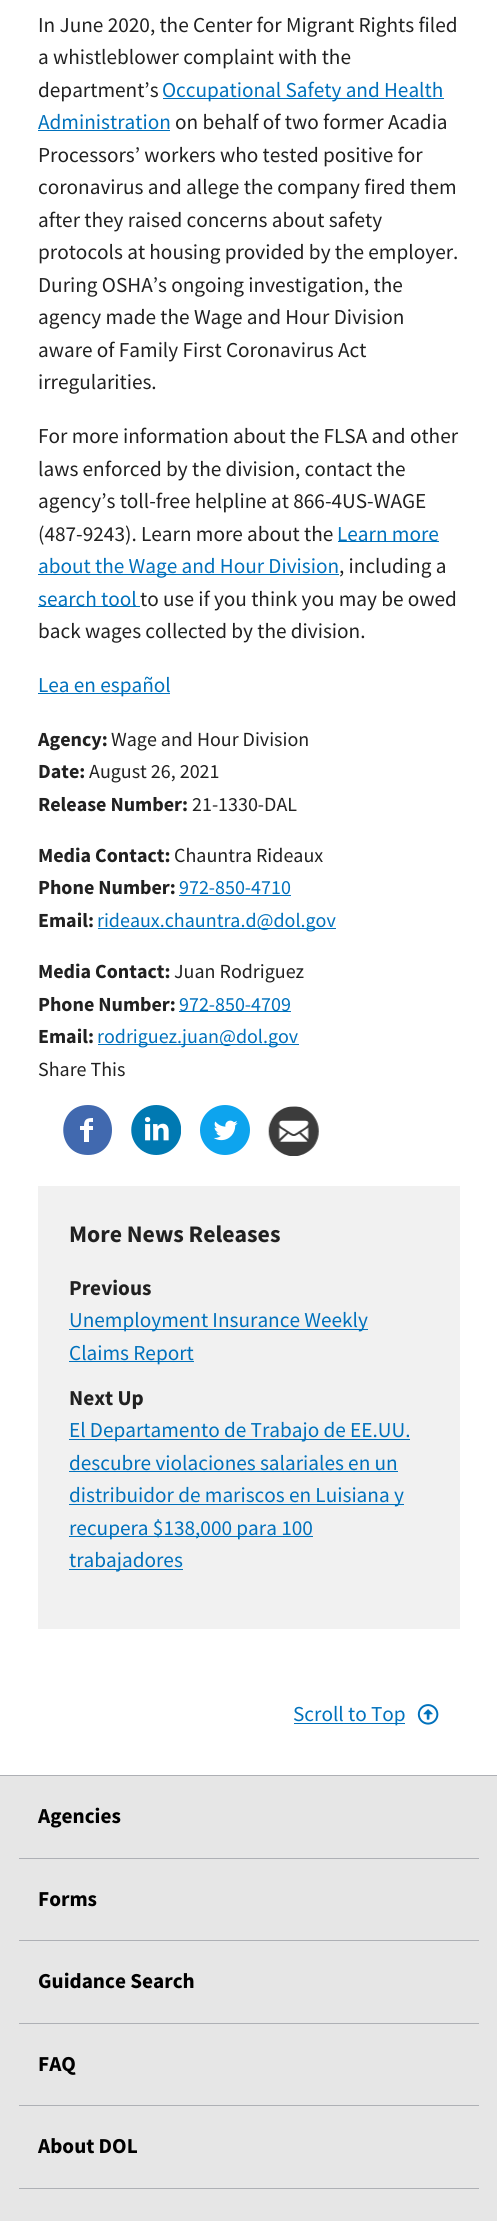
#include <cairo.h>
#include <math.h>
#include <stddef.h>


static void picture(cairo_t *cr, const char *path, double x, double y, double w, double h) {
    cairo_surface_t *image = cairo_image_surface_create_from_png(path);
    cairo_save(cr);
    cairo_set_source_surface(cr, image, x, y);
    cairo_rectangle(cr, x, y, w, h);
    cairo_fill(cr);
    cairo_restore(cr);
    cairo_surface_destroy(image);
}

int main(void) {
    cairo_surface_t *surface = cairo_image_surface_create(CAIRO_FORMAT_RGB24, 497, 2221);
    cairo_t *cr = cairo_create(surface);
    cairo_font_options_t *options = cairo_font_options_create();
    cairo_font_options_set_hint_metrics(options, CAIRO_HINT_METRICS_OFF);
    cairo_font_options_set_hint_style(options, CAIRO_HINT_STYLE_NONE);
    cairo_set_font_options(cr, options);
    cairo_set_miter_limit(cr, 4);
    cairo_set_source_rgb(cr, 1, 1, 1);
    cairo_paint(cr);
    cairo_select_font_face(cr, "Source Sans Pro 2", CAIRO_FONT_SLANT_NORMAL, CAIRO_FONT_WEIGHT_NORMAL);
    cairo_set_font_size(cr, 21.25);
    cairo_set_source_rgb(cr, 0.129, 0.129, 0.129);
    cairo_move_to(cr, 38, 32);
    cairo_show_text(cr, "In June 2020, the Center for Migrant Rights filed");
    cairo_move_to(cr, 38, 64);
    cairo_show_text(cr, "a whistleblower complaint with the");
    cairo_move_to(cr, 38, 97);
    cairo_show_text(cr, "department’s");
    cairo_set_source_rgb(cr, 0, 0.443, 0.737);
    cairo_rectangle(cr, 163, 98, 281, 1);
    cairo_fill(cr);
    cairo_move_to(cr, 162, 97);
    cairo_show_text(cr, "Occupational Safety and Health");
    cairo_move_to(cr, 38, 129);
    cairo_show_text(cr, "Administration");
    cairo_rectangle(cr, 38, 130, 132, 1);
    cairo_fill(cr);
    cairo_set_source_rgb(cr, 0.129, 0.129, 0.129);
    cairo_move_to(cr, 175, 129);
    cairo_show_text(cr, "on behalf of two former Acadia");
    cairo_move_to(cr, 38, 162);
    cairo_show_text(cr, "Processors’ workers who tested positive for");
    cairo_move_to(cr, 38, 194);
    cairo_show_text(cr, "coronavirus and allege the company fired them");
    cairo_move_to(cr, 38, 227);
    cairo_show_text(cr, "after they raised concerns about safety");
    cairo_move_to(cr, 38, 259);
    cairo_show_text(cr, "protocols at housing provided by the employer.");
    cairo_move_to(cr, 38, 292);
    cairo_show_text(cr, "During OSHA’s ongoing investigation, the");
    cairo_move_to(cr, 38, 324);
    cairo_show_text(cr, "agency made the Wage and Hour Division");
    cairo_move_to(cr, 38, 357);
    cairo_show_text(cr, "aware of Family First Coronavirus Act");
    cairo_move_to(cr, 38, 389);
    cairo_show_text(cr, "irregularities.");
    cairo_move_to(cr, 38, 443);
    cairo_show_text(cr, "For more information about the FLSA and other");
    cairo_move_to(cr, 38, 476);
    cairo_show_text(cr, "laws enforced by the division, contact the");
    cairo_move_to(cr, 38, 508);
    cairo_show_text(cr, "agency’s toll-free helpline at 866-4US-WAGE");
    cairo_move_to(cr, 38, 541);
    cairo_show_text(cr, "(487-9243). Learn more about the");
    cairo_set_source_rgb(cr, 0, 0.443, 0.737);
    cairo_rectangle(cr, 338, 541, 101, 1);
    cairo_fill(cr);
    cairo_move_to(cr, 337, 541);
    cairo_show_text(cr, "Learn more");
    cairo_rectangle(cr, 38, 574, 301, 1);
    cairo_fill(cr);
    cairo_move_to(cr, 38, 573);
    cairo_show_text(cr, "about the Wage and Hour Division");
    cairo_set_source_rgb(cr, 0.129, 0.129, 0.129);
    cairo_move_to(cr, 339, 573);
    cairo_show_text(cr, ", including a");
    cairo_set_source_rgb(cr, 0, 0.443, 0.737);
    cairo_rectangle(cr, 38, 606, 102, 1);
    cairo_fill(cr);
    cairo_move_to(cr, 38, 606);
    cairo_show_text(cr, "search tool");
    cairo_set_source_rgb(cr, 0.129, 0.129, 0.129);
    cairo_move_to(cr, 140, 606);
    cairo_show_text(cr, "to use if you think you may be owed");
    cairo_move_to(cr, 38, 638);
    cairo_show_text(cr, "back wages collected by the division.");
    cairo_set_source_rgb(cr, 0, 0.443, 0.737);
    cairo_rectangle(cr, 38, 693, 132, 1);
    cairo_fill(cr);
    cairo_move_to(cr, 38, 692);
    cairo_show_text(cr, "Lea en español");
    cairo_select_font_face(cr, "Source Sans Pro 2", CAIRO_FONT_SLANT_NORMAL, CAIRO_FONT_WEIGHT_BOLD);
    cairo_set_font_size(cr, 20);
    cairo_set_source_rgb(cr, 0.129, 0.129, 0.129);
    cairo_move_to(cr, 38, 746);
    cairo_show_text(cr, "Agency:");
    cairo_select_font_face(cr, "Source Sans Pro 2", CAIRO_FONT_SLANT_NORMAL, CAIRO_FONT_WEIGHT_NORMAL);
    cairo_move_to(cr, 111, 746);
    cairo_show_text(cr, "Wage and Hour Division");
    cairo_select_font_face(cr, "Source Sans Pro 2", CAIRO_FONT_SLANT_NORMAL, CAIRO_FONT_WEIGHT_BOLD);
    cairo_move_to(cr, 38, 778);
    cairo_show_text(cr, "Date:");
    cairo_select_font_face(cr, "Source Sans Pro 2", CAIRO_FONT_SLANT_NORMAL, CAIRO_FONT_WEIGHT_NORMAL);
    cairo_move_to(cr, 89, 778);
    cairo_show_text(cr, "August 26, 2021");
    cairo_select_font_face(cr, "Source Sans Pro 2", CAIRO_FONT_SLANT_NORMAL, CAIRO_FONT_WEIGHT_BOLD);
    cairo_move_to(cr, 38, 811);
    cairo_show_text(cr, "Release Number:");
    cairo_select_font_face(cr, "Source Sans Pro 2", CAIRO_FONT_SLANT_NORMAL, CAIRO_FONT_WEIGHT_NORMAL);
    cairo_move_to(cr, 192, 811);
    cairo_show_text(cr, "21-1330-DAL");
    cairo_select_font_face(cr, "Source Sans Pro 2", CAIRO_FONT_SLANT_NORMAL, CAIRO_FONT_WEIGHT_BOLD);
    cairo_move_to(cr, 38, 862);
    cairo_show_text(cr, "Media Contact:");
    cairo_select_font_face(cr, "Source Sans Pro 2", CAIRO_FONT_SLANT_NORMAL, CAIRO_FONT_WEIGHT_NORMAL);
    cairo_move_to(cr, 174, 862);
    cairo_show_text(cr, "Chauntra Rideaux");
    cairo_select_font_face(cr, "Source Sans Pro 2", CAIRO_FONT_SLANT_NORMAL, CAIRO_FONT_WEIGHT_BOLD);
    cairo_move_to(cr, 38, 894);
    cairo_show_text(cr, "Phone Number:");
    cairo_select_font_face(cr, "Source Sans Pro 2", CAIRO_FONT_SLANT_NORMAL, CAIRO_FONT_WEIGHT_NORMAL);
    cairo_set_source_rgb(cr, 0, 0.443, 0.737);
    cairo_move_to(cr, 179, 894);
    cairo_show_text(cr, "972-850-4710");
    cairo_rectangle(cr, 179, 895, 112, 1);
    cairo_fill(cr);
    cairo_select_font_face(cr, "Source Sans Pro 2", CAIRO_FONT_SLANT_NORMAL, CAIRO_FONT_WEIGHT_BOLD);
    cairo_set_source_rgb(cr, 0.129, 0.129, 0.129);
    cairo_move_to(cr, 38, 927);
    cairo_show_text(cr, "Email:");
    cairo_set_source_rgb(cr, 0, 0.443, 0.737);
    cairo_rectangle(cr, 98, 928, 238, 1);
    cairo_fill(cr);
    cairo_select_font_face(cr, "Source Sans Pro 2", CAIRO_FONT_SLANT_NORMAL, CAIRO_FONT_WEIGHT_NORMAL);
    cairo_move_to(cr, 97, 927);
    cairo_show_text(cr, "rideaux.chauntra.d@dol.gov");
    cairo_select_font_face(cr, "Source Sans Pro 2", CAIRO_FONT_SLANT_NORMAL, CAIRO_FONT_WEIGHT_BOLD);
    cairo_set_source_rgb(cr, 0.129, 0.129, 0.129);
    cairo_move_to(cr, 38, 978);
    cairo_show_text(cr, "Media Contact:");
    cairo_select_font_face(cr, "Source Sans Pro 2", CAIRO_FONT_SLANT_NORMAL, CAIRO_FONT_WEIGHT_NORMAL);
    cairo_move_to(cr, 174, 978);
    cairo_show_text(cr, "Juan Rodriguez");
    cairo_select_font_face(cr, "Source Sans Pro 2", CAIRO_FONT_SLANT_NORMAL, CAIRO_FONT_WEIGHT_BOLD);
    cairo_move_to(cr, 38, 1011);
    cairo_show_text(cr, "Phone Number:");
    cairo_set_source_rgb(cr, 0, 0.443, 0.737);
    cairo_rectangle(cr, 179, 1011, 112, 1);
    cairo_fill(cr);
    cairo_select_font_face(cr, "Source Sans Pro 2", CAIRO_FONT_SLANT_NORMAL, CAIRO_FONT_WEIGHT_NORMAL);
    cairo_move_to(cr, 179, 1011);
    cairo_show_text(cr, "972-850-4709");
    cairo_select_font_face(cr, "Source Sans Pro 2", CAIRO_FONT_SLANT_NORMAL, CAIRO_FONT_WEIGHT_BOLD);
    cairo_set_source_rgb(cr, 0.129, 0.129, 0.129);
    cairo_move_to(cr, 38, 1043);
    cairo_show_text(cr, "Email:");
    cairo_set_source_rgb(cr, 0, 0.443, 0.737);
    cairo_rectangle(cr, 98, 1044, 201, 1);
    cairo_fill(cr);
    cairo_select_font_face(cr, "Source Sans Pro 2", CAIRO_FONT_SLANT_NORMAL, CAIRO_FONT_WEIGHT_NORMAL);
    cairo_move_to(cr, 97, 1043);
    cairo_show_text(cr, "rodriguez.juan@dol.gov");
    cairo_set_source_rgb(cr, 0.129, 0.129, 0.129);
    cairo_move_to(cr, 38, 1076);
    cairo_show_text(cr, "Share This");
    cairo_set_source_rgb(cr, 0.255, 0.412, 0.686);
    cairo_new_path(cr);
    cairo_move_to(cr, 88, 1105);
    cairo_curve_to(cr, 55, 1105, 55, 1155, 88, 1155);
    cairo_curve_to(cr, 120, 1155, 120, 1105, 88, 1105);
    cairo_close_path(cr);
    cairo_move_to(cr, 93, 1122);
    cairo_curve_to(cr, 88, 1122, 89, 1121, 89, 1126);
    cairo_line_to(cr, 93, 1126);
    cairo_line_to(cr, 93, 1130);
    cairo_line_to(cr, 89, 1130);
    cairo_line_to(cr, 89, 1142);
    cairo_line_to(cr, 84, 1142);
    cairo_line_to(cr, 84, 1130);
    cairo_line_to(cr, 80, 1130);
    cairo_line_to(cr, 80, 1126);
    cairo_line_to(cr, 84, 1126);
    cairo_curve_to(cr, 84, 1119, 87, 1118, 93, 1118);
    cairo_close_path(cr);
    cairo_fill(cr);
    picture(cr, "img1.png", 131, 1105, 50, 50);
    picture(cr, "img2.png", 200, 1105, 50, 50);
    picture(cr, "img3.png", 268, 1106, 51, 50);
    cairo_set_source_rgb(cr, 0.945, 0.945, 0.945);
    cairo_rectangle(cr, 38, 1186, 422, 443);
    cairo_fill(cr);
    cairo_select_font_face(cr, "Source Sans Pro 2", CAIRO_FONT_SLANT_NORMAL, CAIRO_FONT_WEIGHT_BOLD);
    cairo_set_font_size(cr, 23.75);
    cairo_set_source_rgb(cr, 0.129, 0.129, 0.129);
    cairo_move_to(cr, 69, 1242);
    cairo_show_text(cr, "More News Releases");
    cairo_set_font_size(cr, 21.25);
    cairo_move_to(cr, 69, 1295);
    cairo_show_text(cr, "Previous");
    cairo_set_source_rgb(cr, 0, 0.443, 0.737);
    cairo_rectangle(cr, 69, 1329, 299, 1);
    cairo_fill(cr);
    cairo_select_font_face(cr, "Source Sans Pro 2", CAIRO_FONT_SLANT_NORMAL, CAIRO_FONT_WEIGHT_NORMAL);
    cairo_move_to(cr, 69, 1327);
    cairo_show_text(cr, "Unemployment Insurance Weekly");
    cairo_rectangle(cr, 69, 1361, 125, 1);
    cairo_fill(cr);
    cairo_move_to(cr, 69, 1360);
    cairo_show_text(cr, "Claims Report");
    cairo_select_font_face(cr, "Source Sans Pro 2", CAIRO_FONT_SLANT_NORMAL, CAIRO_FONT_WEIGHT_BOLD);
    cairo_set_source_rgb(cr, 0.129, 0.129, 0.129);
    cairo_move_to(cr, 69, 1405);
    cairo_show_text(cr, "Next Up");
    cairo_set_source_rgb(cr, 0, 0.443, 0.737);
    cairo_rectangle(cr, 69, 1439, 341, 1);
    cairo_fill(cr);
    cairo_select_font_face(cr, "Source Sans Pro 2", CAIRO_FONT_SLANT_NORMAL, CAIRO_FONT_WEIGHT_NORMAL);
    cairo_move_to(cr, 69, 1437);
    cairo_show_text(cr, "El Departamento de Trabajo de EE.UU.");
    cairo_move_to(cr, 69, 1470);
    cairo_show_text(cr, "descubre violaciones salariales en un");
    cairo_rectangle(cr, 69, 1471, 329, 1);
    cairo_fill(cr);
    cairo_rectangle(cr, 69, 1504, 335, 1);
    cairo_fill(cr);
    cairo_move_to(cr, 69, 1502);
    cairo_show_text(cr, "distribuidor de mariscos en Luisiana y");
    cairo_rectangle(cr, 69, 1536, 244, 1);
    cairo_fill(cr);
    cairo_move_to(cr, 69, 1535);
    cairo_show_text(cr, "recupera $138,000 para 100");
    cairo_rectangle(cr, 69, 1569, 114, 1);
    cairo_fill(cr);
    cairo_move_to(cr, 69, 1567);
    cairo_show_text(cr, "trabajadores");
    cairo_rectangle(cr, 294, 1723, 111, 1);
    cairo_fill(cr);
    cairo_select_font_face(cr, "Source Sans Pro", CAIRO_FONT_SLANT_NORMAL, CAIRO_FONT_WEIGHT_NORMAL);
    cairo_move_to(cr, 293, 1721);
    cairo_show_text(cr, "Scroll to Top");
    picture(cr, "img4.png", 417, 1704, 22, 21);
    cairo_set_source_rgb(cr, 0.902, 0.902, 0.902);
    cairo_rectangle(cr, 0, 1776, 497, 445);
    cairo_fill(cr);
    cairo_set_source_rgb(cr, 0.682, 0.69, 0.71);
    cairo_rectangle(cr, 0, 1775, 497, 1);
    cairo_fill(cr);
    cairo_select_font_face(cr, "Source Sans Pro", CAIRO_FONT_SLANT_NORMAL, CAIRO_FONT_WEIGHT_BOLD);
    cairo_set_source_rgb(cr, 0, 0, 0);
    cairo_move_to(cr, 38, 1823);
    cairo_show_text(cr, "Agencies");
    cairo_set_source_rgb(cr, 0.682, 0.69, 0.71);
    cairo_rectangle(cr, 19, 1858, 460, 1);
    cairo_fill(cr);
    cairo_set_source_rgb(cr, 0, 0, 0);
    cairo_move_to(cr, 38, 1906);
    cairo_show_text(cr, "Forms");
    cairo_set_source_rgb(cr, 0.682, 0.69, 0.71);
    cairo_rectangle(cr, 19, 1940, 460, 1);
    cairo_fill(cr);
    cairo_set_source_rgb(cr, 0, 0, 0);
    cairo_move_to(cr, 38, 1988);
    cairo_show_text(cr, "Guidance Search");
    cairo_set_source_rgb(cr, 0.682, 0.69, 0.71);
    cairo_rectangle(cr, 19, 2023, 460, 1);
    cairo_fill(cr);
    cairo_set_source_rgb(cr, 0, 0, 0);
    cairo_move_to(cr, 38, 2071);
    cairo_show_text(cr, "FAQ");
    cairo_set_source_rgb(cr, 0.682, 0.69, 0.71);
    cairo_rectangle(cr, 19, 2105, 460, 1);
    cairo_fill(cr);
    cairo_set_source_rgb(cr, 0, 0, 0);
    cairo_move_to(cr, 38, 2153);
    cairo_show_text(cr, "About DOL");
    cairo_set_source_rgb(cr, 0.682, 0.69, 0.71);
    cairo_rectangle(cr, 19, 2188, 460, 1);
    cairo_fill(cr);
    cairo_surface_write_to_png(surface, "page.png");
    cairo_font_options_destroy(options);
    cairo_destroy(cr);
    cairo_surface_destroy(surface);
    return 0;
}
